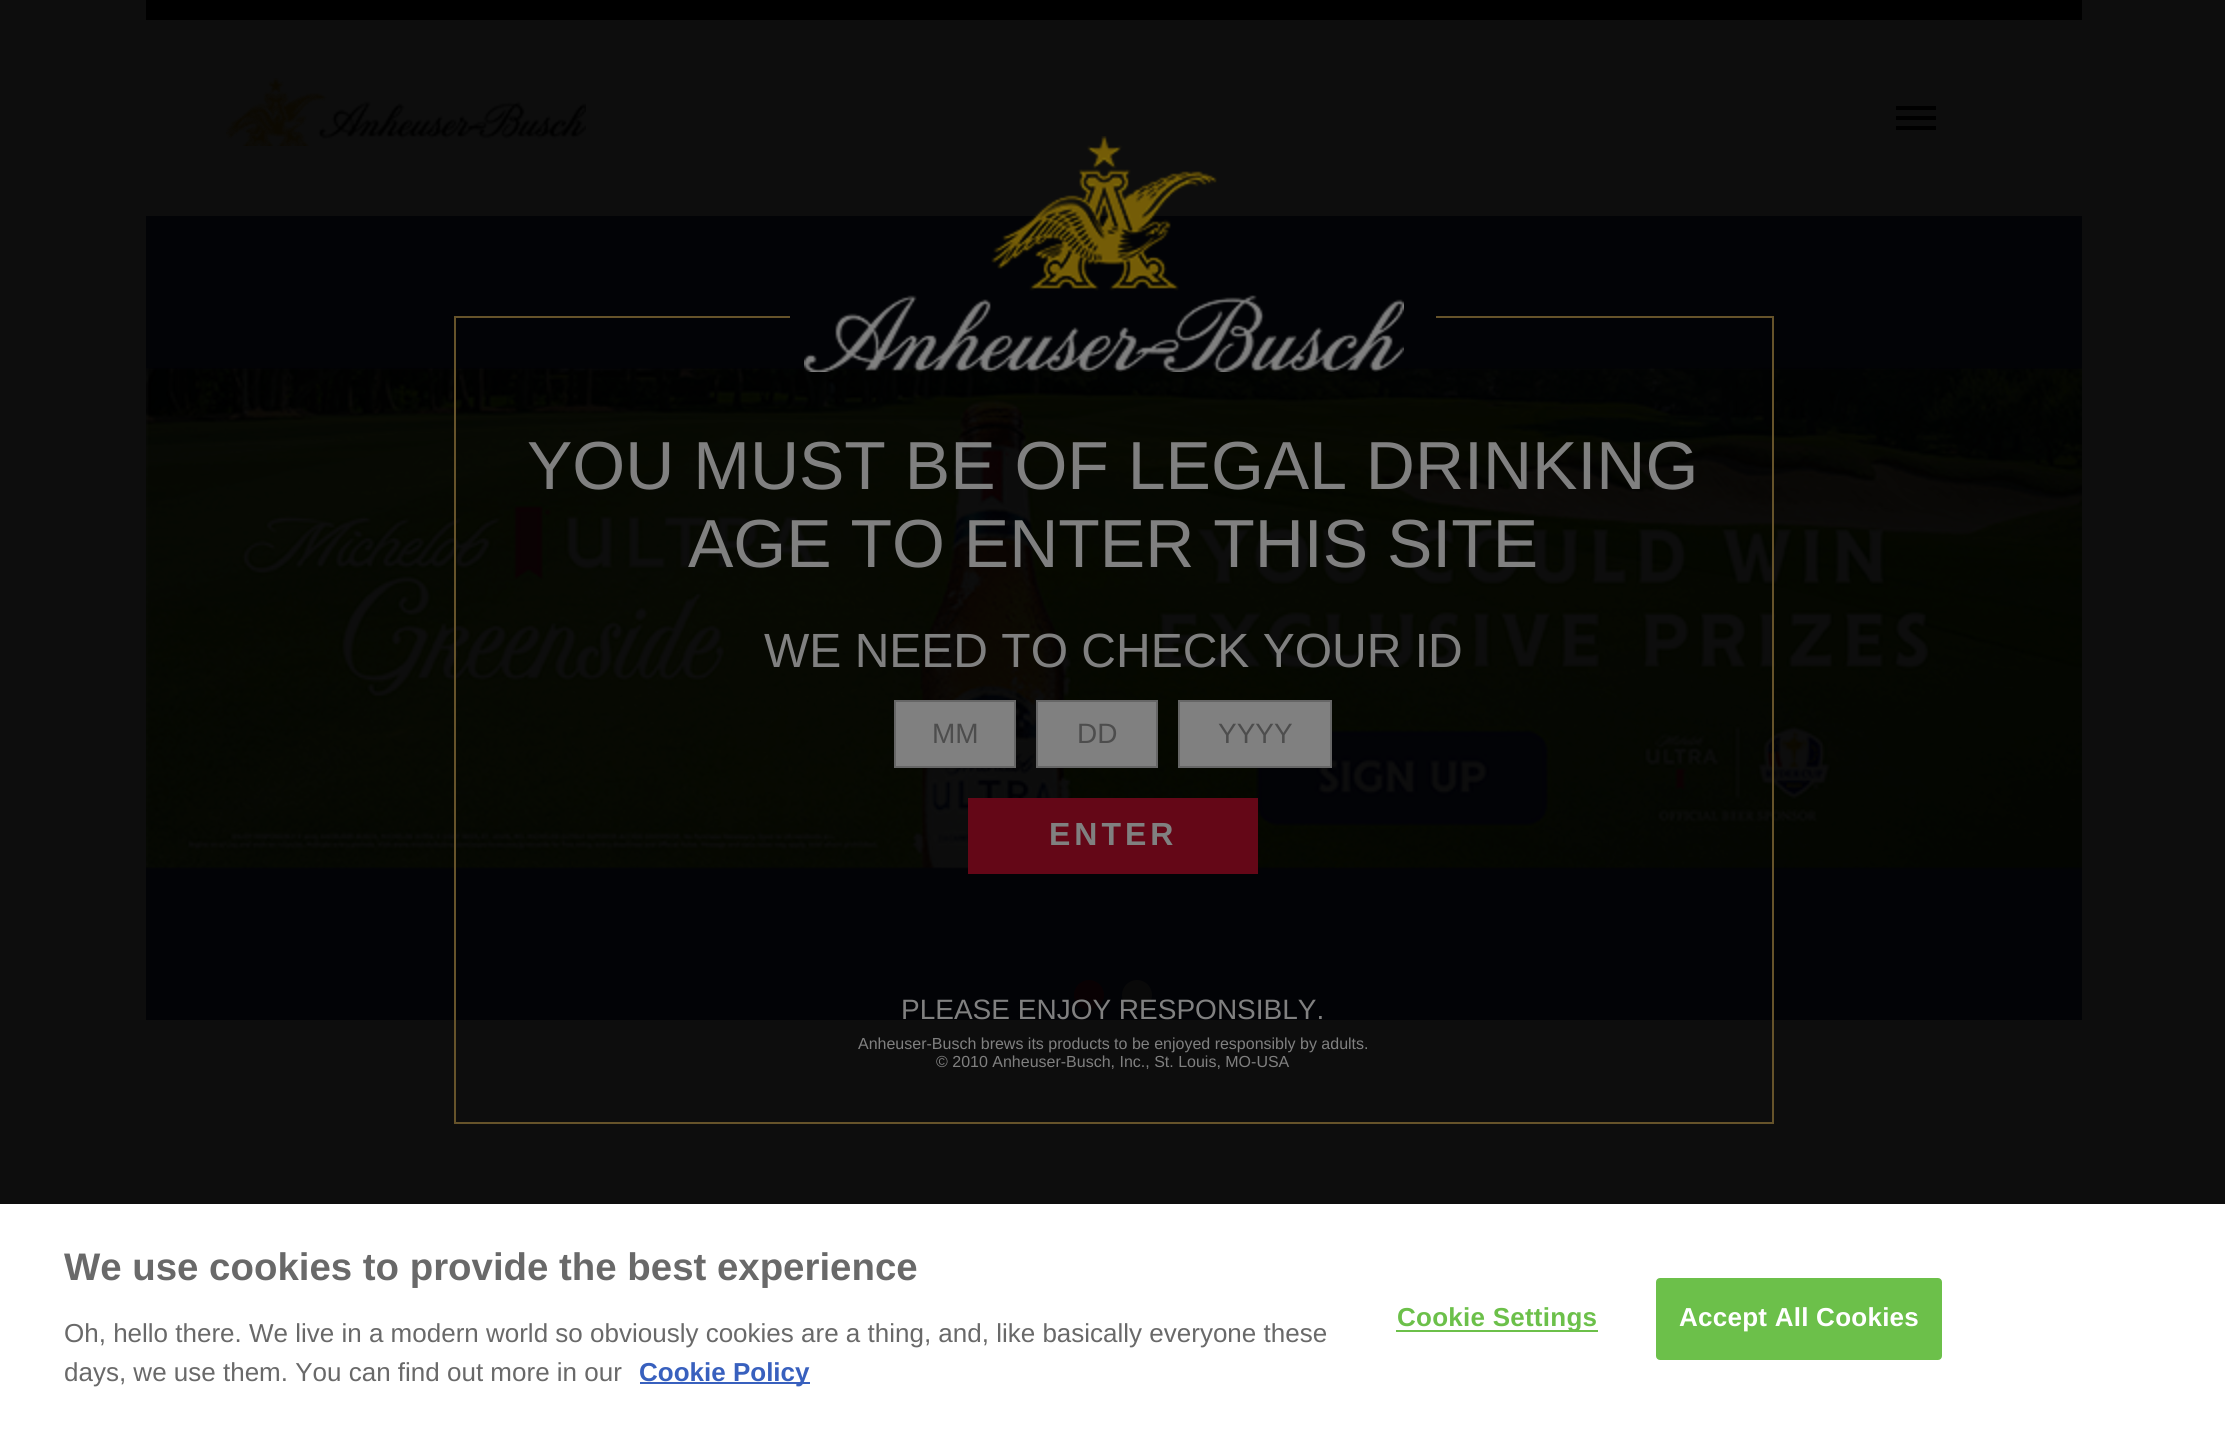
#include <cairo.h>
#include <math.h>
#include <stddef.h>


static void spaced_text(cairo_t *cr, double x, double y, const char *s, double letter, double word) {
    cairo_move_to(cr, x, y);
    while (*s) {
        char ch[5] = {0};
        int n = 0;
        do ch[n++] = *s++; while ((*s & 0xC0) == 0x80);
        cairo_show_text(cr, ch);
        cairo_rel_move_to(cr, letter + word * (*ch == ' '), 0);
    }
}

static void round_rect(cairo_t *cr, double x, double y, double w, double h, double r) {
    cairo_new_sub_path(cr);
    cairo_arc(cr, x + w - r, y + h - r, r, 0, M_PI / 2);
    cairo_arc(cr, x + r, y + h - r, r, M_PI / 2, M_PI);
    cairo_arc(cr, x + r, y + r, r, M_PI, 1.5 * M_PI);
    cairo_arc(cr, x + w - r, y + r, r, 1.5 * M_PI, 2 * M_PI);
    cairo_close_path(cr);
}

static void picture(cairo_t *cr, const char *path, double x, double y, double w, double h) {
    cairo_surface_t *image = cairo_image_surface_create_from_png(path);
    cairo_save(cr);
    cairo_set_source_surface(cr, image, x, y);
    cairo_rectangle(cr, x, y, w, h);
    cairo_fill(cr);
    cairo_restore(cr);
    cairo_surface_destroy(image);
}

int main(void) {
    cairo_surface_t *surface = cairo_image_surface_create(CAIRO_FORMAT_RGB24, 2225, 1437);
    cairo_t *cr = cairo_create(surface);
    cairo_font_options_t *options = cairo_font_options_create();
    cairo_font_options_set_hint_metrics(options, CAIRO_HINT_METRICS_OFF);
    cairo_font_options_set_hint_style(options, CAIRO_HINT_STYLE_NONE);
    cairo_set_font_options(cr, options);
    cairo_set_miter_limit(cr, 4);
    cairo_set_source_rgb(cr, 0.051, 0.051, 0.051);
    cairo_paint(cr);
    cairo_set_source_rgb(cr, 0, 0, 0);
    cairo_rectangle(cr, 146, 0, 1936, 20);
    cairo_fill(cr);
    picture(cr, "img1.png", 226, 78, 360, 68);
    cairo_rectangle(cr, 1896, 116, 40, 4);
    cairo_fill(cr);
    cairo_rectangle(cr, 1896, 106, 40, 4);
    cairo_fill(cr);
    cairo_rectangle(cr, 1896, 126, 40, 4);
    cairo_fill(cr);
    picture(cr, "img2.png", 146, 216, 1936, 804);
    cairo_set_source_rgb(cr, 0.039, 0.004, 0.012);
    cairo_arc(cr, 1089, 995, 15, 0, 2 * M_PI);
    cairo_fill(cr);
    cairo_set_source_rgb(cr, 0.039, 0.039, 0.039);
    cairo_arc(cr, 1137, 995, 15, 0, 2 * M_PI);
    cairo_fill(cr);
    picture(cr, "img3.png", 804, 136, 600, 236);
    cairo_set_source_rgb(cr, 0.4, 0.325, 0.165);
    cairo_rectangle(cr, 1772, 316, 2, 808);
    cairo_fill(cr);
    cairo_rectangle(cr, 454, 1122, 1320, 2);
    cairo_fill(cr);
    cairo_rectangle(cr, 454, 316, 2, 808);
    cairo_fill(cr);
    cairo_rectangle(cr, 456, 316, 334, 2);
    cairo_fill(cr);
    cairo_rectangle(cr, 1436, 316, 336, 2);
    cairo_fill(cr);
    cairo_select_font_face(cr, "Liberation Sans", CAIRO_FONT_SLANT_NORMAL, CAIRO_FONT_WEIGHT_NORMAL);
    cairo_set_font_size(cr, 68);
    cairo_set_source_rgb(cr, 0.502, 0.502, 0.502);
    cairo_move_to(cr, 527, 489);
    cairo_show_text(cr, "YOU MUST BE OF LEGAL DRINKING");
    cairo_move_to(cr, 688, 567);
    cairo_show_text(cr, "AGE TO ENTER THIS SITE");
    cairo_set_font_size(cr, 48);
    cairo_move_to(cr, 764, 667);
    cairo_show_text(cr, "WE NEED TO CHECK YOUR ID");
    cairo_rectangle(cr, 895, 701, 120, 66);
    cairo_fill_preserve(cr);
    cairo_set_source_rgb(cr, 0.4, 0.4, 0.4);
    cairo_stroke(cr);
    cairo_set_font_size(cr, 28);
    cairo_set_source_rgb(cr, 0.302, 0.302, 0.302);
    cairo_move_to(cr, 932, 743);
    cairo_show_text(cr, "MM");
    cairo_set_source_rgb(cr, 0.502, 0.502, 0.502);
    cairo_rectangle(cr, 1037, 701, 120, 66);
    cairo_fill_preserve(cr);
    cairo_set_source_rgb(cr, 0.4, 0.4, 0.4);
    cairo_stroke(cr);
    cairo_set_source_rgb(cr, 0.302, 0.302, 0.302);
    cairo_move_to(cr, 1077, 743);
    cairo_show_text(cr, "DD");
    cairo_set_source_rgb(cr, 0.502, 0.502, 0.502);
    cairo_rectangle(cr, 1179, 701, 152, 66);
    cairo_fill_preserve(cr);
    cairo_set_source_rgb(cr, 0.4, 0.4, 0.4);
    cairo_stroke(cr);
    cairo_set_source_rgb(cr, 0.302, 0.302, 0.302);
    cairo_move_to(cr, 1218, 743);
    cairo_show_text(cr, "YYYY");
    cairo_set_source_rgb(cr, 0.392, 0.031, 0.09);
    cairo_rectangle(cr, 968, 798, 290, 76);
    cairo_fill(cr);
    cairo_select_font_face(cr, "Liberation Sans", CAIRO_FONT_SLANT_NORMAL, CAIRO_FONT_WEIGHT_BOLD);
    cairo_set_font_size(cr, 32);
    cairo_set_source_rgb(cr, 0.502, 0.502, 0.502);
    spaced_text(cr, 1049, 845, "ENTER", 4, 0);
    cairo_select_font_face(cr, "Liberation Sans", CAIRO_FONT_SLANT_NORMAL, CAIRO_FONT_WEIGHT_NORMAL);
    cairo_set_font_size(cr, 28);
    cairo_move_to(cr, 901, 1019);
    cairo_show_text(cr, "PLEASE ENJOY RESPONSIBLY.");
    cairo_set_font_size(cr, 16);
    cairo_move_to(cr, 858, 1049);
    cairo_show_text(cr, "Anheuser-Busch brews its products to be enjoyed responsibly by adults.");
    cairo_move_to(cr, 936, 1067);
    cairo_show_text(cr, "© 2010 Anheuser-Busch, Inc., St. Louis, MO-USA");
    cairo_set_source_rgb(cr, 1, 1, 1);
    cairo_rectangle(cr, 0, 1204, 2225, 233);
    cairo_fill(cr);
    cairo_select_font_face(cr, "Liberation Sans", CAIRO_FONT_SLANT_NORMAL, CAIRO_FONT_WEIGHT_BOLD);
    cairo_set_font_size(cr, 38.4);
    cairo_set_source_rgb(cr, 0.412, 0.412, 0.412);
    cairo_move_to(cr, 64, 1280);
    cairo_show_text(cr, "We use cookies to provide the best experience");
    cairo_select_font_face(cr, "Liberation Sans", CAIRO_FONT_SLANT_NORMAL, CAIRO_FONT_WEIGHT_NORMAL);
    cairo_set_font_size(cr, 26);
    cairo_move_to(cr, 64, 1342);
    cairo_show_text(cr, "Oh, hello there. We live in a modern world so obviously cookies are a thing, and, like basically everyone these");
    cairo_move_to(cr, 64, 1381);
    cairo_show_text(cr, "days, we use them. You can find out more in our");
    cairo_set_source_rgb(cr, 0.22, 0.376, 0.745);
    cairo_rectangle(cr, 640, 1382, 170, 2);
    cairo_fill(cr);
    cairo_select_font_face(cr, "Liberation Sans", CAIRO_FONT_SLANT_NORMAL, CAIRO_FONT_WEIGHT_BOLD);
    cairo_move_to(cr, 639, 1381);
    cairo_show_text(cr, "Cookie Policy");
    cairo_set_source_rgb(cr, 0.424, 0.753, 0.29);
    cairo_rectangle(cr, 1396, 1330, 202, 2);
    cairo_fill(cr);
    spaced_text(cr, 1397, 1326, "Cookie Settings", 0.25, 0);
    round_rect(cr, 1657, 1279, 284, 80, 3);
    cairo_fill_preserve(cr);
    cairo_stroke(cr);
    cairo_set_source_rgb(cr, 1, 1, 1);
    spaced_text(cr, 1679, 1326, "Accept All Cookies", 0.25, 0);
    cairo_surface_write_to_png(surface, "page.png");
    cairo_font_options_destroy(options);
    cairo_destroy(cr);
    cairo_surface_destroy(surface);
    return 0;
}
